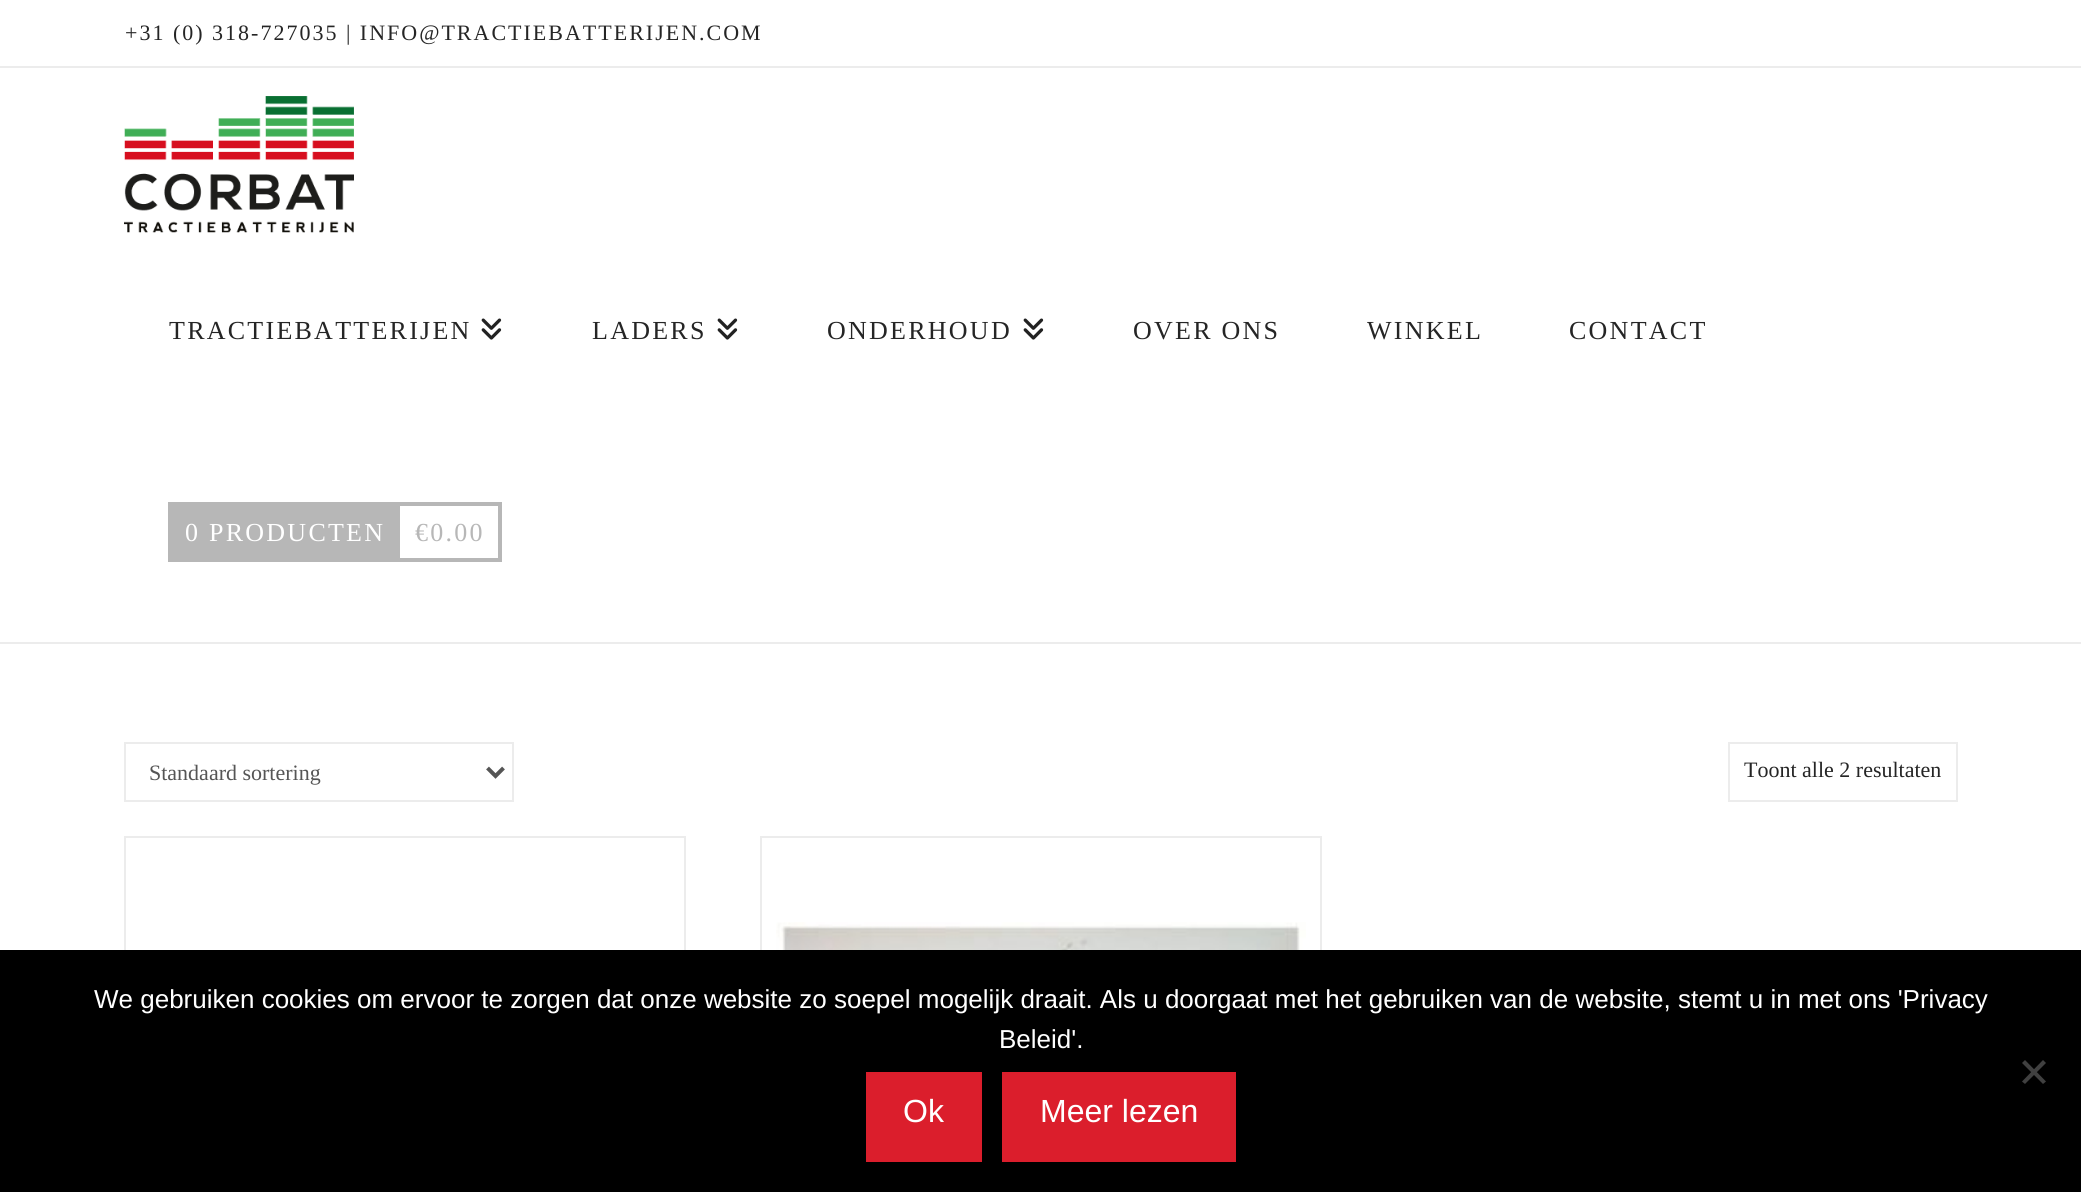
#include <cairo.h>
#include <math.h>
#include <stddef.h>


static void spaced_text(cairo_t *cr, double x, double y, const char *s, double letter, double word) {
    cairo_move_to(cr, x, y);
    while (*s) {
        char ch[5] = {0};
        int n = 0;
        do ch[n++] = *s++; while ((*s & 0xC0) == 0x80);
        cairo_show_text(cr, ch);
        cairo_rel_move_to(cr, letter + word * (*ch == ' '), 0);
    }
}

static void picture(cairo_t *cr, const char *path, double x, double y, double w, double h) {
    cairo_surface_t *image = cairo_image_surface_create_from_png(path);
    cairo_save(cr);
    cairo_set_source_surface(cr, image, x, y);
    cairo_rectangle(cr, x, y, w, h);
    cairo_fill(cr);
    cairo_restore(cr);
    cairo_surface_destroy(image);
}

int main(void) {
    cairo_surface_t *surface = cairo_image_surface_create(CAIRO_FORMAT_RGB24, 2081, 1192);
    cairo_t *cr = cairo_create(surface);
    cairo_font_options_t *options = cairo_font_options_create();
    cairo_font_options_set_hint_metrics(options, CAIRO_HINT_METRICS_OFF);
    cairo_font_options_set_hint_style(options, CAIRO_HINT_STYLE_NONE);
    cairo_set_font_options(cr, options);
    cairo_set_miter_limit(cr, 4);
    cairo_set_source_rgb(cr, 1, 1, 1);
    cairo_paint(cr);
    cairo_set_source_rgb(cr, 0.925, 0.925, 0.925);
    cairo_rectangle(cr, 0, 66, 2081, 2);
    cairo_fill(cr);
    cairo_select_font_face(cr, "Liberation Serif", CAIRO_FONT_SLANT_NORMAL, CAIRO_FONT_WEIGHT_NORMAL);
    cairo_set_font_size(cr, 22);
    cairo_set_source_rgb(cr, 0.145, 0.145, 0.145);
    spaced_text(cr, 125, 40, "+31 (0) 318-727035 | INFO@TRACTIEBATTERIJEN.COM", 2, 0);
    cairo_set_source_rgb(cr, 0.925, 0.925, 0.925);
    cairo_rectangle(cr, 0, 642, 2081, 2);
    cairo_fill(cr);
    picture(cr, "img1.png", 124, 96, 230, 137);
    cairo_set_font_size(cr, 26);
    cairo_set_source_rgb(cr, 0.145, 0.145, 0.145);
    spaced_text(cr, 169, 339, "TRACTIEBATTERIJEN", 2.25, 0);
    picture(cr, "img2.png", 481, 318, 21, 22);
    spaced_text(cr, 592, 339, "LADERS", 2.25, 0);
    picture(cr, "img2.png", 717, 318, 21, 22);
    spaced_text(cr, 827, 339, "ONDERHOUD", 2.25, 0);
    picture(cr, "img2.png", 1023, 318, 21, 22);
    spaced_text(cr, 1133, 339, "OVER ONS", 2.25, 0);
    spaced_text(cr, 1367, 339, "WINKEL", 2.25, 0);
    spaced_text(cr, 1569, 339, "CONTACT", 2.25, 0);
    cairo_set_source_rgb(cr, 0.718, 0.718, 0.718);
    cairo_rectangle(cr, 168, 502, 334, 4);
    cairo_fill(cr);
    cairo_rectangle(cr, 498, 502, 4, 60);
    cairo_fill(cr);
    cairo_rectangle(cr, 168, 558, 334, 4);
    cairo_fill(cr);
    cairo_rectangle(cr, 168, 506, 232, 52);
    cairo_fill(cr);
    cairo_set_source_rgb(cr, 1, 1, 1);
    spaced_text(cr, 185, 541, "0 PRODUCTEN", 2.25, 0);
    cairo_set_source_rgb(cr, 0.718, 0.718, 0.718);
    spaced_text(cr, 415, 541, "€0.00", 2.25, 0);
    cairo_rectangle(cr, 125, 743, 388, 58);
    cairo_set_source_rgb(cr, 0.925, 0.925, 0.925);
    cairo_stroke(cr);
    cairo_new_path(cr);
    cairo_move_to(cr, 487.5, 768);
    cairo_line_to(cr, 495.5, 776);
    cairo_line_to(cr, 503.5, 768);
    cairo_set_source_rgb(cr, 0.333, 0.333, 0.333);
    cairo_set_line_width(cr, 4);
    cairo_stroke(cr);
    cairo_set_font_size(cr, 22);
    cairo_move_to(cr, 149, 780);
    cairo_show_text(cr, "Standaard sortering");
    cairo_rectangle(cr, 1729, 743, 228, 58);
    cairo_set_source_rgb(cr, 0.925, 0.925, 0.925);
    cairo_set_line_width(cr, 2);
    cairo_stroke(cr);
    cairo_set_source_rgb(cr, 0.145, 0.145, 0.145);
    cairo_move_to(cr, 1744, 777);
    cairo_show_text(cr, "Toont alle 2 resultaten");
    cairo_rectangle(cr, 125, 837, 560, 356);
    cairo_set_source_rgb(cr, 0.925, 0.925, 0.925);
    cairo_stroke(cr);
    cairo_rectangle(cr, 761, 837, 560, 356);
    cairo_stroke(cr);
    picture(cr, "img3.png", 776, 922, 530, 28);
    cairo_set_source_rgb(cr, 0, 0, 0);
    cairo_rectangle(cr, 0, 950, 2081, 242);
    cairo_fill(cr);
    cairo_select_font_face(cr, "Liberation Sans", CAIRO_FONT_SLANT_NORMAL, CAIRO_FONT_WEIGHT_NORMAL);
    cairo_set_font_size(cr, 26);
    cairo_set_source_rgb(cr, 1, 1, 1);
    cairo_move_to(cr, 94, 1008);
    cairo_show_text(cr, "We gebruiken cookies om ervoor te zorgen dat onze website zo soepel mogelijk draait. Als u doorgaat met het gebruiken van de website, stemt u in met ons 'Privacy");
    cairo_move_to(cr, 999, 1048);
    cairo_show_text(cr, "Beleid'.");
    cairo_set_source_rgb(cr, 0.251, 0.251, 0.251);
    cairo_new_path(cr);
    cairo_move_to(cr, 2043, 1060);
    cairo_line_to(cr, 2046, 1063);
    cairo_line_to(cr, 2025, 1084);
    cairo_line_to(cr, 2022, 1081.5);
    cairo_close_path(cr);
    cairo_fill(cr);
    cairo_new_path(cr);
    cairo_move_to(cr, 2022, 1063);
    cairo_line_to(cr, 2025, 1060);
    cairo_line_to(cr, 2046, 1081.5);
    cairo_line_to(cr, 2043, 1084);
    cairo_close_path(cr);
    cairo_fill(cr);
    cairo_set_source_rgb(cr, 0.859, 0.118, 0.173);
    cairo_rectangle(cr, 866, 1072, 116, 90);
    cairo_fill(cr);
    cairo_set_font_size(cr, 32);
    cairo_set_source_rgb(cr, 1, 1, 1);
    cairo_move_to(cr, 903, 1122);
    cairo_show_text(cr, "Ok");
    cairo_set_source_rgb(cr, 0.859, 0.118, 0.173);
    cairo_rectangle(cr, 1002, 1072, 234, 90);
    cairo_fill(cr);
    cairo_set_source_rgb(cr, 1, 1, 1);
    cairo_move_to(cr, 1040, 1122);
    cairo_show_text(cr, "Meer lezen");
    cairo_surface_write_to_png(surface, "page.png");
    cairo_font_options_destroy(options);
    cairo_destroy(cr);
    cairo_surface_destroy(surface);
    return 0;
}
